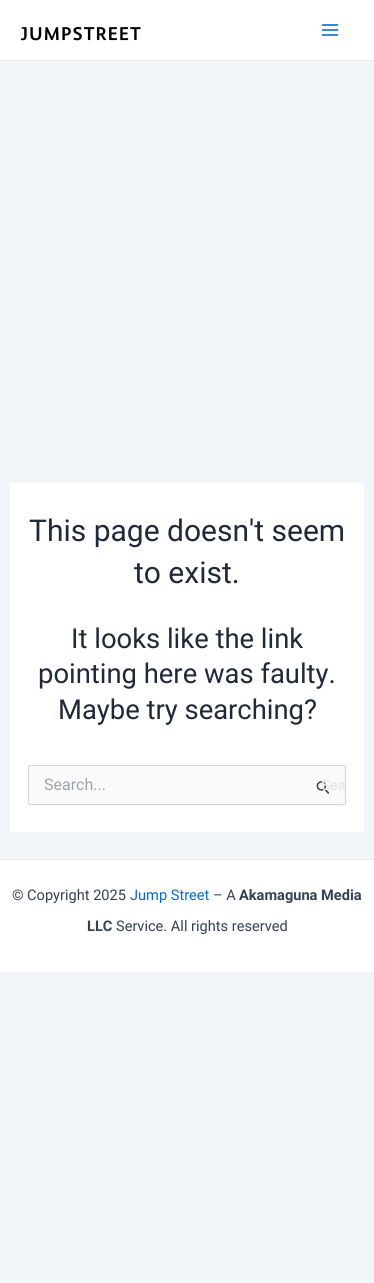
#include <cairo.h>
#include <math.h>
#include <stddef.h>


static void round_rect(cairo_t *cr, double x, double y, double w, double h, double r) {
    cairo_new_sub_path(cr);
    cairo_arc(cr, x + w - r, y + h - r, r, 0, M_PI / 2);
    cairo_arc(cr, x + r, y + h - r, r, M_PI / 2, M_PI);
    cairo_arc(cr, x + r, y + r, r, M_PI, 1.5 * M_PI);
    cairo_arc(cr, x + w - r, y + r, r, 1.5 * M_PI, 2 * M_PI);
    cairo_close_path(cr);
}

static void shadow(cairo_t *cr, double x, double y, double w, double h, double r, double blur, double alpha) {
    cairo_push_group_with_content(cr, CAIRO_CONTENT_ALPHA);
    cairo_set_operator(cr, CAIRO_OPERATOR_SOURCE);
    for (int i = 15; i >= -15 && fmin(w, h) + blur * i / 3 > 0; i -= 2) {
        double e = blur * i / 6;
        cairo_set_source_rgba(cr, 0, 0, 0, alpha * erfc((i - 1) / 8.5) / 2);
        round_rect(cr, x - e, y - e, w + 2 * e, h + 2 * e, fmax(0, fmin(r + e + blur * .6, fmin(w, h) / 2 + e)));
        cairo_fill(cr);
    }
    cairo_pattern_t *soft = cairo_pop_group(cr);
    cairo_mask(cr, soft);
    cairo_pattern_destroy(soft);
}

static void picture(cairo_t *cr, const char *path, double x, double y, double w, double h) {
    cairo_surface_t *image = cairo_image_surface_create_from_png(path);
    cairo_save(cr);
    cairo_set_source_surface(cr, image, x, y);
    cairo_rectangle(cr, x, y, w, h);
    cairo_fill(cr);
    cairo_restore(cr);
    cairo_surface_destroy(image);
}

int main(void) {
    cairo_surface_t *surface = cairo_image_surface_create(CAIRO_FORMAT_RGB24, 374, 1283);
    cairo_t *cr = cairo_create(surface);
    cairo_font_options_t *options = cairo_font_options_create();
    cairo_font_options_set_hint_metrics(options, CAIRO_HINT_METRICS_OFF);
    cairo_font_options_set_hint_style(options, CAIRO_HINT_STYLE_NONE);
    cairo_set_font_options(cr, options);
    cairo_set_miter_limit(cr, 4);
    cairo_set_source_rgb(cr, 0.941, 0.961, 0.98);
    cairo_paint(cr);
    cairo_set_source_rgb(cr, 1, 1, 1);
    cairo_rectangle(cr, 0, 0, 374, 60);
    cairo_fill(cr);
    cairo_set_source_rgb(cr, 0.918, 0.918, 0.918);
    cairo_rectangle(cr, 0, 60, 374, 1);
    cairo_fill(cr);
    picture(cr, "img1.png", 20, 26, 121, 15);
    picture(cr, "img2.png", 321, 24, 18, 12);
    cairo_set_source_rgb(cr, 1, 1, 1);
    cairo_rectangle(cr, 10, 483, 354, 349);
    cairo_fill(cr);
    cairo_select_font_face(cr, "Roboto", CAIRO_FONT_SLANT_NORMAL, CAIRO_FONT_WEIGHT_NORMAL);
    cairo_set_font_size(cr, 30);
    cairo_set_source_rgb(cr, 0.118, 0.161, 0.231);
    cairo_move_to(cr, 29, 541);
    cairo_show_text(cr, "This page doesn't seem");
    cairo_move_to(cr, 134, 583);
    cairo_show_text(cr, "to exist.");
    cairo_set_font_size(cr, 27.4);
    cairo_move_to(cr, 71, 648);
    cairo_show_text(cr, "It looks like the link");
    cairo_move_to(cr, 38, 683);
    cairo_show_text(cr, "pointing here was faulty.");
    cairo_move_to(cr, 58, 719);
    cairo_show_text(cr, "Maybe try searching?");
    cairo_set_source_rgb(cr, 0, 0, 0);
    shadow(cr, 28, 766, 318, 40, 2, 1, 0.05);
    cairo_set_source_rgb(cr, 0.98, 0.98, 0.98);
    round_rect(cr, 28.5, 765.5, 317, 39, 1.5);
    cairo_fill_preserve(cr);
    cairo_set_source_rgb(cr, 0.82, 0.835, 0.859);
    cairo_set_line_width(cr, 1);
    cairo_stroke(cr);
    cairo_set_font_size(cr, 16);
    cairo_set_source_rgb(cr, 0.612, 0.639, 0.686);
    cairo_move_to(cr, 44, 790);
    cairo_show_text(cr, "Search...");
    picture(cr, "img3.png", 316, 781, 13, 13);
    cairo_select_font_face(cr, "Roboto Medium", CAIRO_FONT_SLANT_NORMAL, CAIRO_FONT_WEIGHT_NORMAL);
    cairo_set_font_size(cr, 14.6);
    cairo_set_source_rgb(cr, 0.906, 0.906, 0.906);
    cairo_move_to(cr, 321, 790);
    cairo_show_text(cr, "Sea");
    cairo_set_source_rgb(cr, 1, 1, 1);
    cairo_rectangle(cr, 0, 860, 374, 112);
    cairo_fill(cr);
    cairo_set_source_rgb(cr, 0.918, 0.918, 0.918);
    cairo_rectangle(cr, 0, 859, 374, 1);
    cairo_fill(cr);
    cairo_select_font_face(cr, "Roboto", CAIRO_FONT_SLANT_NORMAL, CAIRO_FONT_WEIGHT_NORMAL);
    cairo_set_source_rgb(cr, 0.2, 0.255, 0.333);
    cairo_move_to(cr, 12, 900);
    cairo_show_text(cr, "© Copyright 2025");
    cairo_set_source_rgb(cr, 0.016, 0.42, 0.824);
    cairo_move_to(cr, 130, 900);
    cairo_show_text(cr, "Jump Street");
    cairo_set_source_rgb(cr, 0.2, 0.255, 0.333);
    cairo_move_to(cr, 213, 900);
    cairo_show_text(cr, "– A");
    cairo_select_font_face(cr, "Roboto", CAIRO_FONT_SLANT_NORMAL, CAIRO_FONT_WEIGHT_BOLD);
    cairo_move_to(cr, 239, 900);
    cairo_show_text(cr, "Akamaguna Media");
    cairo_move_to(cr, 87, 931);
    cairo_show_text(cr, "LLC");
    cairo_select_font_face(cr, "Roboto", CAIRO_FONT_SLANT_NORMAL, CAIRO_FONT_WEIGHT_NORMAL);
    cairo_move_to(cr, 116, 931);
    cairo_show_text(cr, "Service. All rights reserved");
    cairo_surface_write_to_png(surface, "page.png");
    cairo_font_options_destroy(options);
    cairo_destroy(cr);
    cairo_surface_destroy(surface);
    return 0;
}
